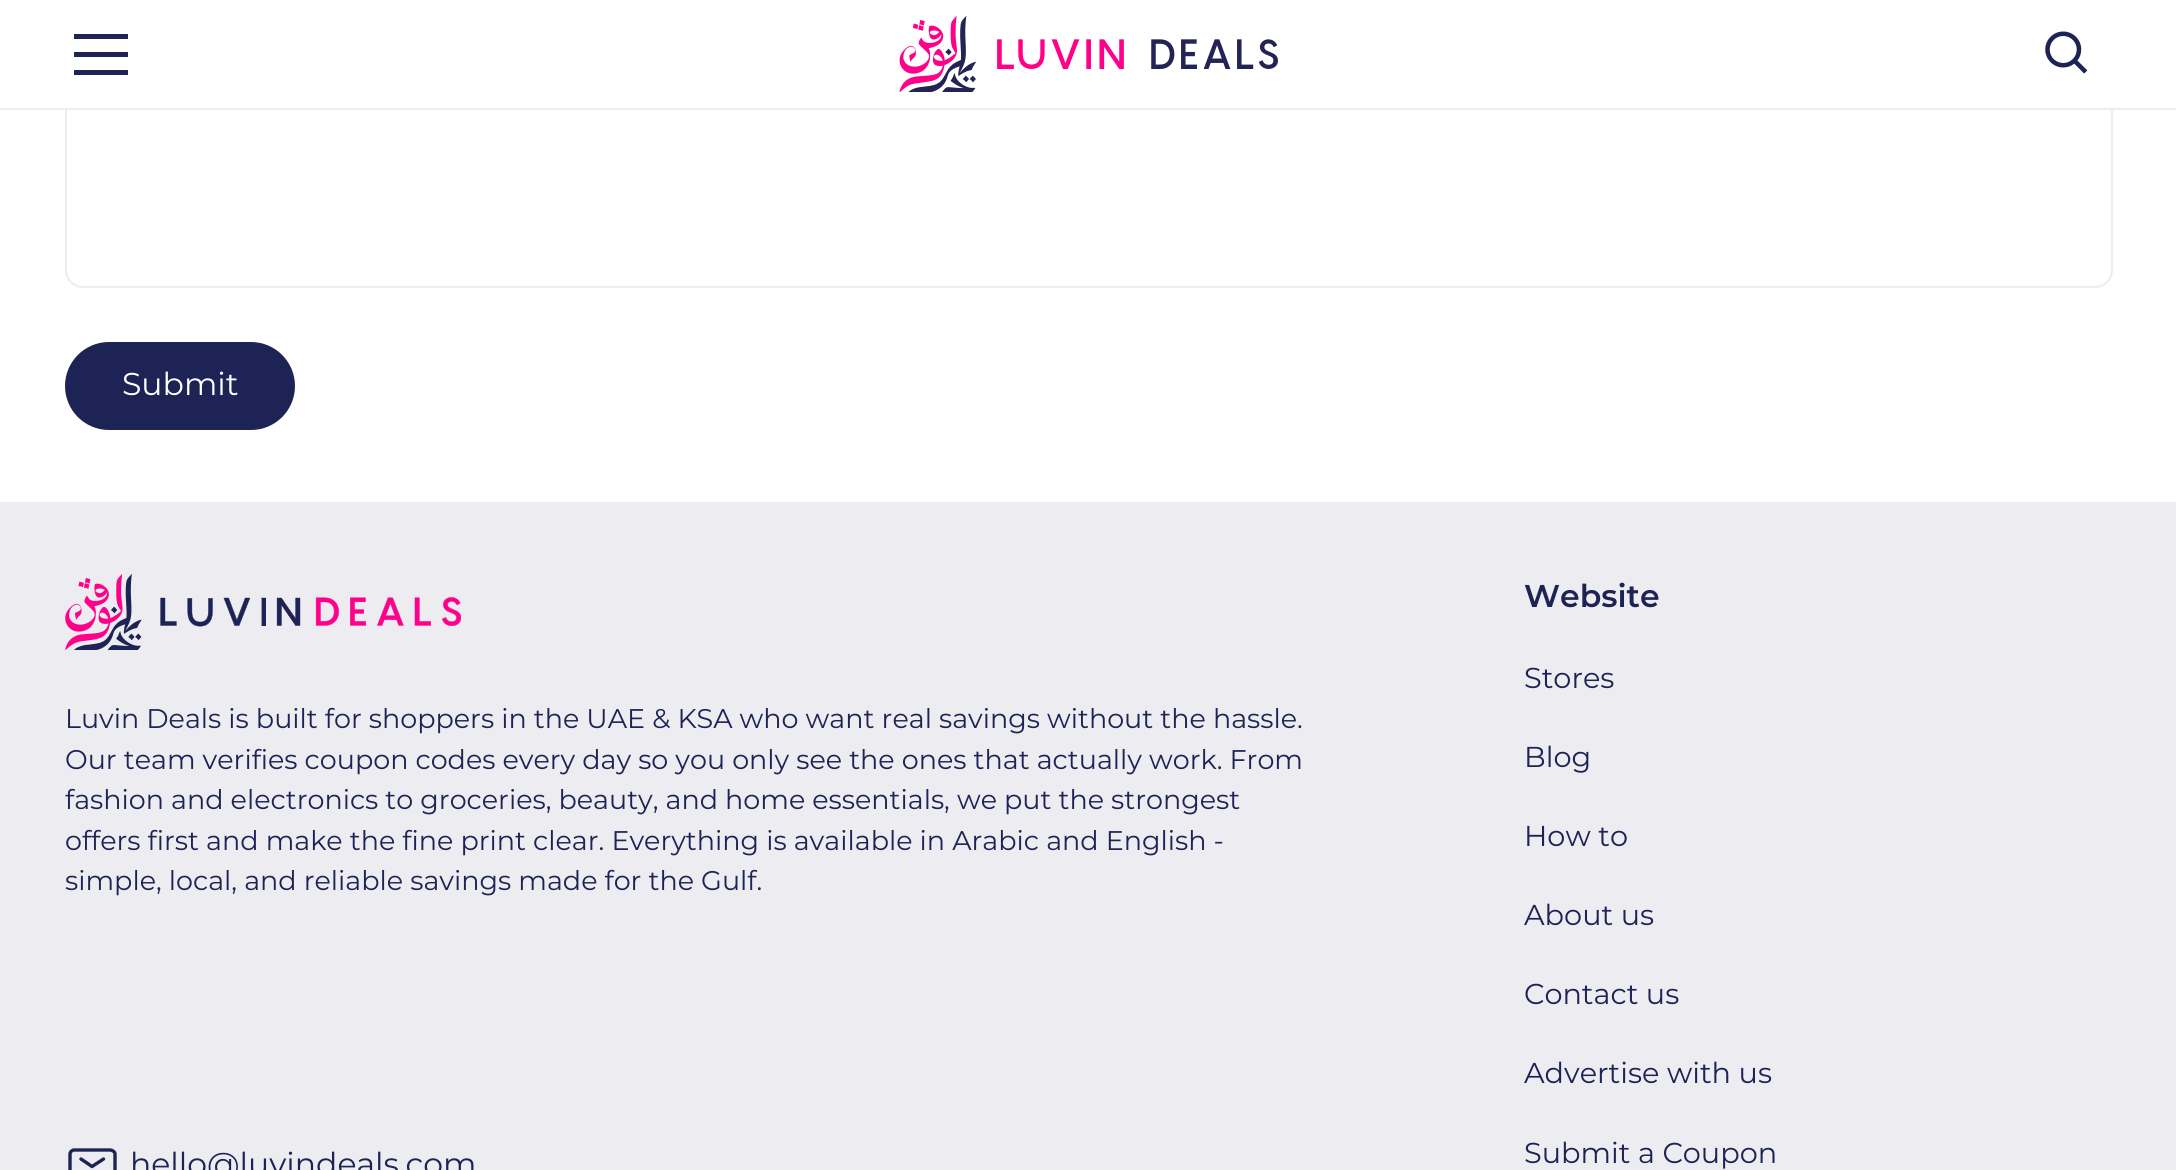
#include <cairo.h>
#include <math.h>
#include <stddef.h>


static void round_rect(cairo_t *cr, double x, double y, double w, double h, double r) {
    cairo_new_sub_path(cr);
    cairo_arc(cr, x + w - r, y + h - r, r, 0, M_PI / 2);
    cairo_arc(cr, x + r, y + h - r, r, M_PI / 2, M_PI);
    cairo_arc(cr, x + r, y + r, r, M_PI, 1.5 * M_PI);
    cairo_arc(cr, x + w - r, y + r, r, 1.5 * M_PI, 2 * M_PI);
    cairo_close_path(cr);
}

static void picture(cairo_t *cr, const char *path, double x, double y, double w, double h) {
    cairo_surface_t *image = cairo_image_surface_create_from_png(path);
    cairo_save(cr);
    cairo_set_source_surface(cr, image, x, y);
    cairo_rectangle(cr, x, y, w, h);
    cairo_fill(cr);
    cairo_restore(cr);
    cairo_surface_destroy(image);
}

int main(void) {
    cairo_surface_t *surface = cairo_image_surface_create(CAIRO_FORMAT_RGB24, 2176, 1170);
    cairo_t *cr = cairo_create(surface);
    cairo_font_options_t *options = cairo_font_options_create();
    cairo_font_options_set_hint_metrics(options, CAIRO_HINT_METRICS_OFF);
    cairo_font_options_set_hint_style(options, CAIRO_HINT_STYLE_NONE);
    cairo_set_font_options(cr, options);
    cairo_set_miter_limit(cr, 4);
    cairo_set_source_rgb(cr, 1, 1, 1);
    cairo_paint(cr);
    round_rect(cr, 66, -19, 2046, 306, 17);
    cairo_set_source_rgb(cr, 0.929, 0.929, 0.945);
    cairo_stroke(cr);
    cairo_set_source_rgb(cr, 1, 1, 1);
    cairo_rectangle(cr, 65, 0, 2048, 108);
    cairo_fill(cr);
    cairo_set_source_rgb(cr, 0.929, 0.929, 0.945);
    cairo_rectangle(cr, 0, 108, 2176, 2);
    cairo_fill(cr);
    cairo_set_source_rgb(cr, 0.114, 0.137, 0.333);
    cairo_rectangle(cr, 74, 34, 54, 5);
    cairo_fill(cr);
    cairo_rectangle(cr, 74, 52, 54, 5);
    cairo_fill(cr);
    cairo_rectangle(cr, 74, 70, 54, 5);
    cairo_fill(cr);
    picture(cr, "img1.png", 899, 16, 379, 76);
    picture(cr, "img2.png", 2045, 31, 43, 43);
    round_rect(cr, 66, 343, 228, 86, 43);
    cairo_fill_preserve(cr);
    cairo_stroke(cr);
    cairo_select_font_face(cr, "Montserrat", CAIRO_FONT_SLANT_NORMAL, CAIRO_FONT_WEIGHT_NORMAL);
    cairo_set_font_size(cr, 31.5);
    cairo_set_source_rgb(cr, 1, 1, 1);
    cairo_move_to(cr, 122, 395);
    cairo_show_text(cr, "Submit");
    cairo_set_source_rgb(cr, 0.929, 0.929, 0.945);
    cairo_rectangle(cr, 0, 502, 2176, 668);
    cairo_fill(cr);
    picture(cr, "img3.png", 65, 574, 396, 76);
    cairo_set_font_size(cr, 27);
    cairo_set_source_rgb(cr, 0.114, 0.137, 0.333);
    cairo_move_to(cr, 65, 728);
    cairo_show_text(cr, "Luvin Deals is built for shoppers in the UAE & KSA who want real savings without the hassle.");
    cairo_move_to(cr, 65, 769);
    cairo_show_text(cr, "Our team verifies coupon codes every day so you only see the ones that actually work. From");
    cairo_move_to(cr, 65, 809);
    cairo_show_text(cr, "fashion and electronics to groceries, beauty, and home essentials, we put the strongest");
    cairo_move_to(cr, 65, 850);
    cairo_show_text(cr, "offers first and make the fine print clear. Everything is available in Arabic and English -");
    cairo_move_to(cr, 65, 890);
    cairo_show_text(cr, "simple, local, and reliable savings made for the Gulf.");
    cairo_new_path(cr);
    cairo_move_to(cr, 81, 1159);
    cairo_line_to(cr, 92, 1166.5);
    cairo_line_to(cr, 103.5, 1159);
    cairo_set_line_width(cr, 3.4);
    cairo_set_line_cap(cr, CAIRO_LINE_CAP_ROUND);
    cairo_set_line_join(cr, CAIRO_LINE_JOIN_ROUND);
    cairo_stroke(cr);
    cairo_new_path(cr);
    cairo_move_to(cr, 70, 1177);
    cairo_line_to(cr, 70, 1154);
    cairo_curve_to(cr, 70, 1152, 72, 1150, 74, 1150);
    cairo_line_to(cr, 110, 1150);
    cairo_curve_to(cr, 112.5, 1150, 115, 1152, 115, 1154);
    cairo_line_to(cr, 115, 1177);
    cairo_curve_to(cr, 115, 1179, 112.5, 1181, 110, 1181);
    cairo_line_to(cr, 74, 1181);
    cairo_curve_to(cr, 72, 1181, 70, 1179, 70, 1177);
    cairo_close_path(cr);
    cairo_set_line_cap(cr, CAIRO_LINE_CAP_BUTT);
    cairo_set_line_join(cr, CAIRO_LINE_JOIN_MITER);
    cairo_stroke(cr);
    cairo_set_font_size(cr, 31.5);
    cairo_move_to(cr, 130, 1175);
    cairo_show_text(cr, "hello@luvindeals.com");
    cairo_select_font_face(cr, "Montserrat SemiBold", CAIRO_FONT_SLANT_NORMAL, CAIRO_FONT_WEIGHT_NORMAL);
    cairo_move_to(cr, 1524, 607);
    cairo_show_text(cr, "Website");
    cairo_select_font_face(cr, "Montserrat", CAIRO_FONT_SLANT_NORMAL, CAIRO_FONT_WEIGHT_NORMAL);
    cairo_set_font_size(cr, 28.75);
    cairo_move_to(cr, 1524, 688);
    cairo_show_text(cr, "Stores");
    cairo_move_to(cr, 1524, 767);
    cairo_show_text(cr, "Blog");
    cairo_move_to(cr, 1524, 846);
    cairo_show_text(cr, "How to");
    cairo_move_to(cr, 1524, 925);
    cairo_show_text(cr, "About us");
    cairo_move_to(cr, 1524, 1004);
    cairo_show_text(cr, "Contact us");
    cairo_move_to(cr, 1524, 1083);
    cairo_show_text(cr, "Advertise with us");
    cairo_move_to(cr, 1524, 1163);
    cairo_show_text(cr, "Submit a Coupon");
    cairo_surface_write_to_png(surface, "page.png");
    cairo_font_options_destroy(options);
    cairo_destroy(cr);
    cairo_surface_destroy(surface);
    return 0;
}
